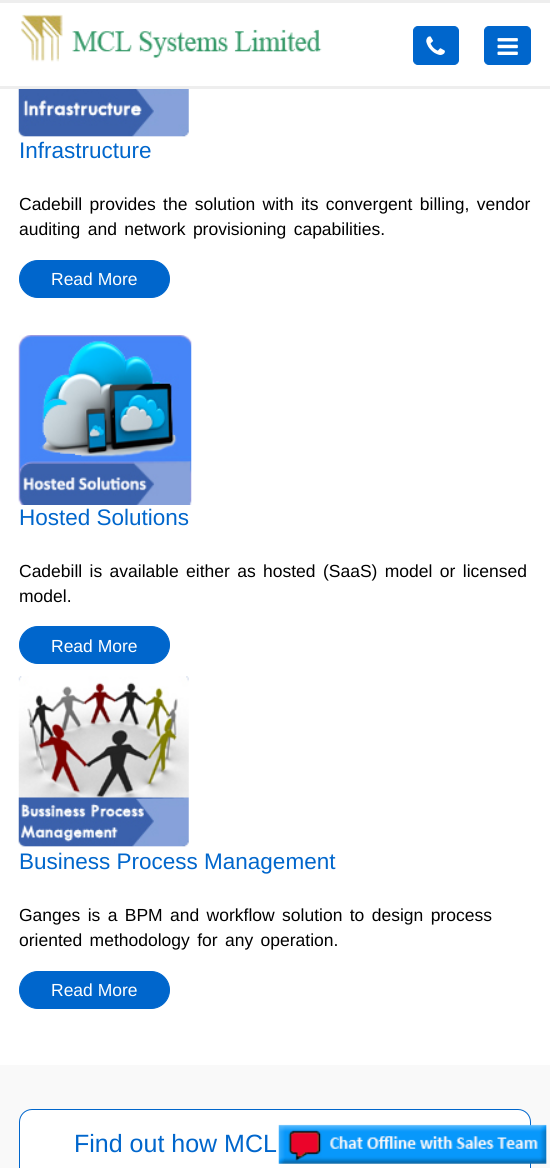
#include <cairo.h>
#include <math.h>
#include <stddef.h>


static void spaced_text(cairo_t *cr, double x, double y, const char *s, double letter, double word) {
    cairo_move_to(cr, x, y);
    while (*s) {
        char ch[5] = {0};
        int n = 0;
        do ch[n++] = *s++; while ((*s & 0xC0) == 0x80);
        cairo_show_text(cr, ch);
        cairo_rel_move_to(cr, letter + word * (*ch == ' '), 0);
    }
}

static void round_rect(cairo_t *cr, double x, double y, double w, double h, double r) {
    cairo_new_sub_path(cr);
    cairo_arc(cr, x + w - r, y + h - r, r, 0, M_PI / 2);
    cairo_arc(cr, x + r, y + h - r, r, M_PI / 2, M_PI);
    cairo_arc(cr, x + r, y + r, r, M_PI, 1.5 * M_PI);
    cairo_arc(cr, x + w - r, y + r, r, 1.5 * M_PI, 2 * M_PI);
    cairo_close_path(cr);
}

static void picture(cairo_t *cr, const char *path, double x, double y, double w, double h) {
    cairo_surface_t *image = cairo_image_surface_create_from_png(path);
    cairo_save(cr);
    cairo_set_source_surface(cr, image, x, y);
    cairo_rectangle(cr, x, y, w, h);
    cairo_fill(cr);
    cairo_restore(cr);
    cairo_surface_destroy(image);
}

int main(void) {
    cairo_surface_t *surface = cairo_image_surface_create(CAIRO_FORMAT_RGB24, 550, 1168);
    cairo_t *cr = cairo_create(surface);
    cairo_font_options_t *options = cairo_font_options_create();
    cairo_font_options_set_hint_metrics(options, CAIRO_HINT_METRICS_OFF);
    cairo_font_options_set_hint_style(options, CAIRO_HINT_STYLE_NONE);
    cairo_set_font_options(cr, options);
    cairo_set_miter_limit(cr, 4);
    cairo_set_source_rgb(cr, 1, 1, 1);
    cairo_paint(cr);
    cairo_set_source_rgb(cr, 0.933, 0.933, 0.933);
    cairo_rectangle(cr, 0, 0, 550, 3);
    cairo_fill(cr);
    cairo_rectangle(cr, 0, 86, 550, 3);
    cairo_fill(cr);
    picture(cr, "img1.png", 21, 14, 301, 48);
    cairo_set_source_rgb(cr, 0, 0.4, 0.8);
    round_rect(cr, 413.5, 26.5, 45, 38, 4.5);
    cairo_fill_preserve(cr);
    cairo_set_line_width(cr, 1);
    cairo_stroke(cr);
    picture(cr, "img2.png", 426, 36, 19, 19);
    round_rect(cr, 484.5, 26.5, 46, 38, 4.5);
    cairo_fill_preserve(cr);
    cairo_stroke(cr);
    picture(cr, "img3.png", 497, 38, 21, 17);
    picture(cr, "img4.png", 18, 89, 171, 48);
    cairo_select_font_face(cr, "Liberation Sans", CAIRO_FONT_SLANT_NORMAL, CAIRO_FONT_WEIGHT_NORMAL);
    cairo_set_font_size(cr, 22.5);
    cairo_move_to(cr, 19, 158);
    cairo_show_text(cr, "Infrastructure");
    cairo_set_font_size(cr, 17.5);
    cairo_set_source_rgb(cr, 0, 0, 0);
    spaced_text(cr, 19, 210, "Cadebill provides the solution with its convergent billing, vendor", 0, 2.5);
    spaced_text(cr, 19, 235, "auditing and network provisioning capabilities.", 0, 2.5);
    cairo_set_source_rgb(cr, 0, 0.4, 0.8);
    round_rect(cr, 19.5, 260.5, 150, 37, 18.5);
    cairo_fill_preserve(cr);
    cairo_stroke(cr);
    cairo_set_source_rgb(cr, 1, 1, 1);
    cairo_move_to(cr, 51, 285);
    cairo_show_text(cr, "Read More");
    picture(cr, "img5.png", 18, 335, 174, 170);
    cairo_set_font_size(cr, 22.5);
    cairo_set_source_rgb(cr, 0, 0.4, 0.8);
    cairo_move_to(cr, 19, 525);
    cairo_show_text(cr, "Hosted Solutions");
    cairo_set_font_size(cr, 17.5);
    cairo_set_source_rgb(cr, 0, 0, 0);
    spaced_text(cr, 19, 577, "Cadebill is available either as hosted (SaaS) model or licensed", 0, 2.5);
    cairo_move_to(cr, 19, 602);
    cairo_show_text(cr, "model.");
    cairo_set_source_rgb(cr, 0, 0.4, 0.8);
    round_rect(cr, 19.5, 626.5, 150, 37, 18.5);
    cairo_fill_preserve(cr);
    cairo_stroke(cr);
    cairo_set_source_rgb(cr, 1, 1, 1);
    cairo_move_to(cr, 51, 652);
    cairo_show_text(cr, "Read More");
    picture(cr, "img6.png", 18, 676, 171, 171);
    cairo_set_font_size(cr, 22.5);
    cairo_set_source_rgb(cr, 0, 0.4, 0.8);
    cairo_move_to(cr, 19, 869);
    cairo_show_text(cr, "Business Process Management");
    cairo_set_font_size(cr, 17.5);
    cairo_set_source_rgb(cr, 0, 0, 0);
    spaced_text(cr, 19, 921, "Ganges is a BPM and workflow solution to design process", 0, 2.5);
    spaced_text(cr, 19, 946, "oriented methodology for any operation.", 0, 2.5);
    cairo_set_source_rgb(cr, 0, 0.4, 0.8);
    round_rect(cr, 19.5, 971.5, 150, 37, 18.5);
    cairo_fill_preserve(cr);
    cairo_stroke(cr);
    cairo_set_source_rgb(cr, 1, 1, 1);
    cairo_move_to(cr, 51, 996);
    cairo_show_text(cr, "Read More");
    cairo_set_source_rgb(cr, 0.976, 0.976, 0.976);
    cairo_rectangle(cr, 0, 1065, 550, 103);
    cairo_fill(cr);
    cairo_set_source_rgb(cr, 1, 1, 1);
    round_rect(cr, 19.5, 1109.5, 511, 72, 12.5);
    cairo_fill_preserve(cr);
    cairo_set_source_rgb(cr, 0, 0.4, 0.8);
    cairo_stroke(cr);
    cairo_set_font_size(cr, 25);
    cairo_move_to(cr, 74, 1152);
    cairo_show_text(cr, "Find out how MCL");
    picture(cr, "img7.png", 278, 1124, 269, 40);
    cairo_surface_write_to_png(surface, "page.png");
    cairo_font_options_destroy(options);
    cairo_destroy(cr);
    cairo_surface_destroy(surface);
    return 0;
}
